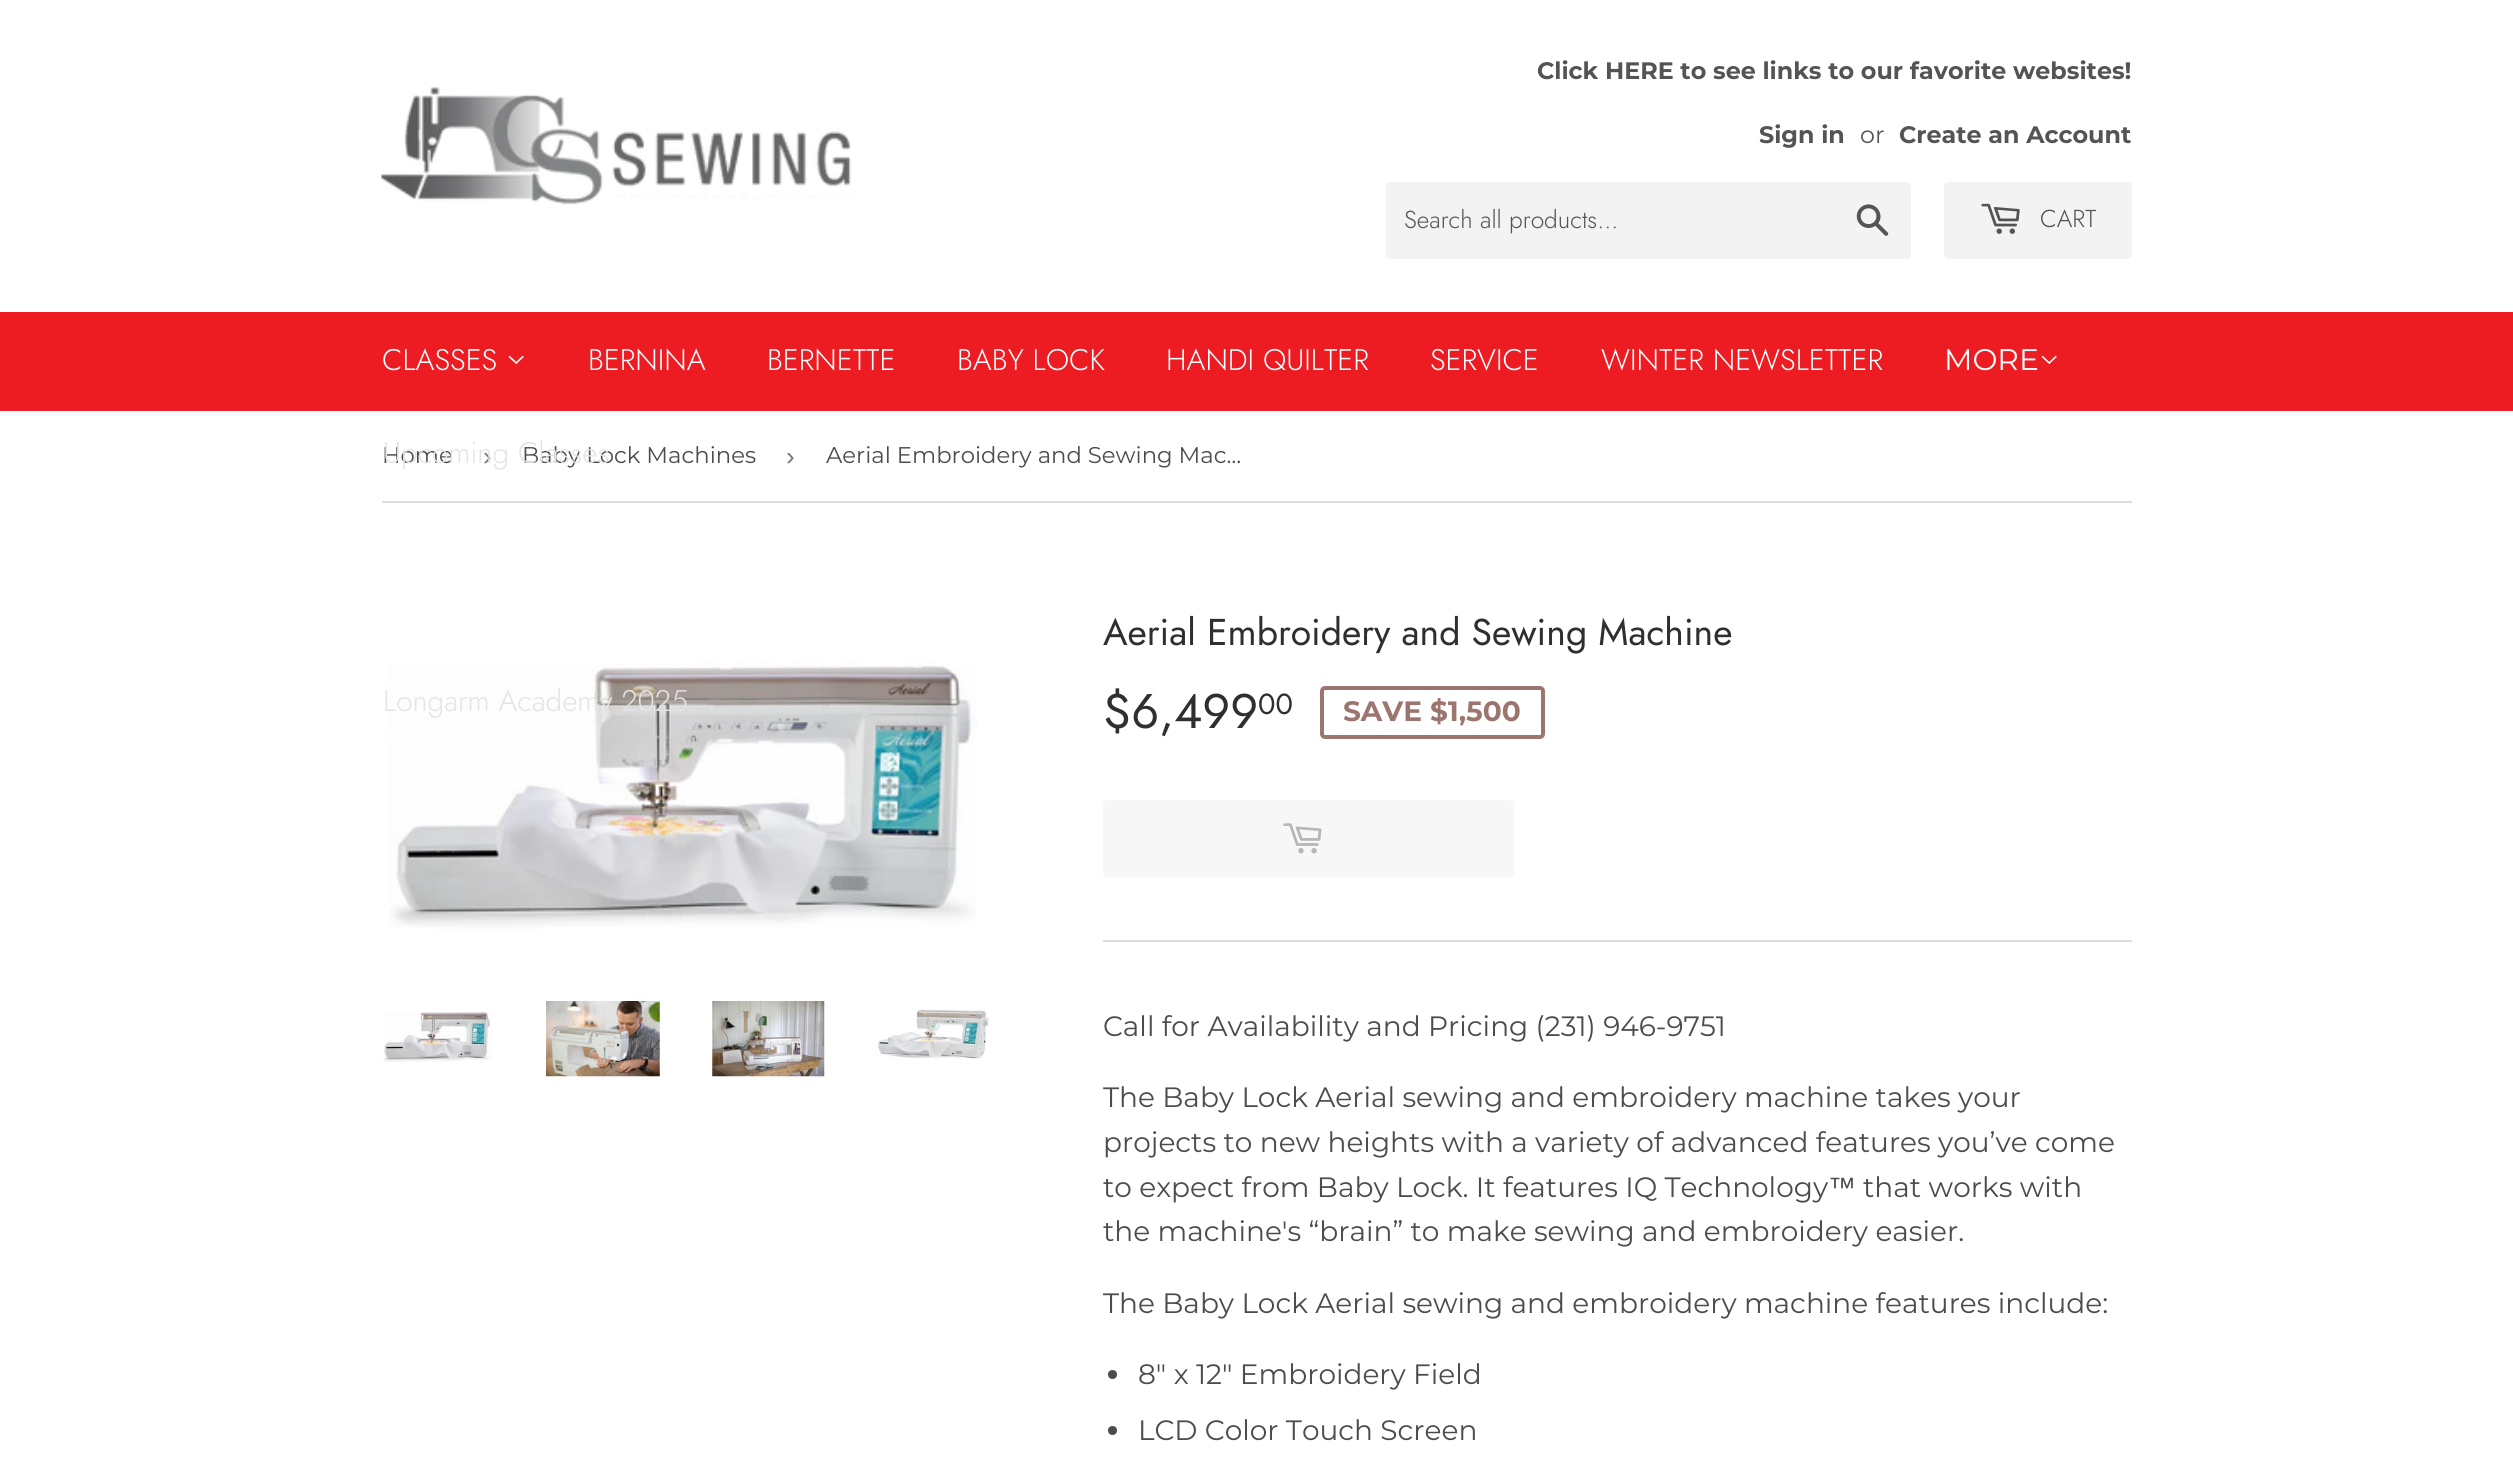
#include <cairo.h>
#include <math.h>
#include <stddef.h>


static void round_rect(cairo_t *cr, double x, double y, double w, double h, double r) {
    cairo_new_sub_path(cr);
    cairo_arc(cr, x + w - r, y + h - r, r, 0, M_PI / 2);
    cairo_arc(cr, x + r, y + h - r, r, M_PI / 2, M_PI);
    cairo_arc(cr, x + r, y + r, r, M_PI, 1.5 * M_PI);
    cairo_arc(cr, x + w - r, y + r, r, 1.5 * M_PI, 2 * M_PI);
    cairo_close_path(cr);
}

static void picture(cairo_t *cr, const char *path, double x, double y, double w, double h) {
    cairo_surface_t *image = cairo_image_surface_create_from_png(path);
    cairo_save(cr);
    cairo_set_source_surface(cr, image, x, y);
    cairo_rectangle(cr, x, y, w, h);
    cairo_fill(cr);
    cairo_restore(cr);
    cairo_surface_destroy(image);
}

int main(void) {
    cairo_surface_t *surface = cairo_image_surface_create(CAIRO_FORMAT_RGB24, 2513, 1465);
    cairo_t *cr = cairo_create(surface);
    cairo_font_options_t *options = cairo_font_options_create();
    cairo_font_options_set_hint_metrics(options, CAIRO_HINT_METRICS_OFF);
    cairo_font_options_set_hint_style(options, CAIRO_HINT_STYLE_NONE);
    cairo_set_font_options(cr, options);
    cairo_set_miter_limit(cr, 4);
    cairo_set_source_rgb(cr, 1, 1, 1);
    cairo_paint(cr);
    picture(cr, "img1.png", 381, 87, 471, 118);
    cairo_select_font_face(cr, "Montserrat", CAIRO_FONT_SLANT_NORMAL, CAIRO_FONT_WEIGHT_BOLD);
    cairo_set_font_size(cr, 23.8);
    cairo_set_source_rgb(cr, 0.329, 0.329, 0.329);
    cairo_move_to(cr, 1537, 79);
    cairo_show_text(cr, "Click HERE to see links to our favorite websites!");
    cairo_move_to(cr, 1759, 143);
    cairo_show_text(cr, "Sign in");
    cairo_select_font_face(cr, "Montserrat", CAIRO_FONT_SLANT_NORMAL, CAIRO_FONT_WEIGHT_NORMAL);
    cairo_move_to(cr, 1860, 143);
    cairo_show_text(cr, "or");
    cairo_select_font_face(cr, "Montserrat", CAIRO_FONT_SLANT_NORMAL, CAIRO_FONT_WEIGHT_BOLD);
    cairo_move_to(cr, 1899, 143);
    cairo_show_text(cr, "Create an Account");
    cairo_set_source_rgb(cr, 0.953, 0.953, 0.953);
    round_rect(cr, 1386, 182, 525, 77, 4);
    cairo_fill(cr);
    cairo_select_font_face(cr, "Jost Light", CAIRO_FONT_SLANT_NORMAL, CAIRO_FONT_WEIGHT_NORMAL);
    cairo_set_font_size(cr, 24.5);
    cairo_set_source_rgb(cr, 0.329, 0.329, 0.329);
    cairo_move_to(cr, 1404, 228);
    cairo_show_text(cr, "Search all products...");
    picture(cr, "img2.png", 1856, 204, 33, 32);
    cairo_set_source_rgb(cr, 0.953, 0.953, 0.953);
    round_rect(cr, 1944, 182, 188, 77, 4);
    cairo_fill(cr);
    picture(cr, "img3.png", 1981, 203, 39, 31);
    cairo_set_source_rgb(cr, 0.329, 0.329, 0.329);
    cairo_move_to(cr, 2040, 227);
    cairo_show_text(cr, "CART");
    cairo_set_source_rgb(cr, 0.929, 0.11, 0.137);
    cairo_rectangle(cr, 0, 312, 2513, 99);
    cairo_fill(cr);
    cairo_set_font_size(cr, 29.75);
    cairo_set_source_rgb(cr, 1, 1, 1);
    cairo_move_to(cr, 382, 370);
    cairo_show_text(cr, "CLASSES");
    picture(cr, "img4.png", 508, 355, 16, 9);
    cairo_select_font_face(cr, "Montserrat", CAIRO_FONT_SLANT_NORMAL, CAIRO_FONT_WEIGHT_NORMAL);
    cairo_set_font_size(cr, 22.75);
    cairo_set_source_rgb(cr, 0.298, 0.298, 0.298);
    cairo_move_to(cr, 382, 463);
    cairo_show_text(cr, "Home");
    cairo_select_font_face(cr, "Liberation Sans", CAIRO_FONT_SLANT_NORMAL, CAIRO_FONT_WEIGHT_NORMAL);
    cairo_set_font_size(cr, 26);
    cairo_set_source_rgb(cr, 0.463, 0.463, 0.463);
    cairo_move_to(cr, 483, 465);
    cairo_show_text(cr, "›");
    cairo_select_font_face(cr, "Montserrat", CAIRO_FONT_SLANT_NORMAL, CAIRO_FONT_WEIGHT_NORMAL);
    cairo_set_font_size(cr, 22.75);
    cairo_set_source_rgb(cr, 0.298, 0.298, 0.298);
    cairo_move_to(cr, 522, 463);
    cairo_show_text(cr, "Baby Lock Machines");
    cairo_select_font_face(cr, "Jost Light", CAIRO_FONT_SLANT_NORMAL, CAIRO_FONT_WEIGHT_NORMAL);
    cairo_set_font_size(cr, 29.75);
    cairo_set_source_rgb(cr, 0.894, 0.894, 0.894);
    cairo_move_to(cr, 383, 463);
    cairo_show_text(cr, "Upcoming Classes");
    picture(cr, "img5.png", 389, 662, 588, 267);
    cairo_move_to(cr, 383, 711);
    cairo_show_text(cr, "Longarm Academy 2025");
    cairo_set_source_rgb(cr, 1, 1, 1);
    cairo_move_to(cr, 588, 370);
    cairo_show_text(cr, "BERNINA");
    cairo_move_to(cr, 767, 370);
    cairo_show_text(cr, "BERNETTE");
    cairo_move_to(cr, 957, 370);
    cairo_show_text(cr, "BABY LOCK");
    cairo_move_to(cr, 1166, 370);
    cairo_show_text(cr, "HANDI QUILTER");
    cairo_move_to(cr, 1430, 370);
    cairo_show_text(cr, "SERVICE");
    cairo_move_to(cr, 1601, 370);
    cairo_show_text(cr, "WINTER NEWSLETTER");
    cairo_select_font_face(cr, "Montserrat", CAIRO_FONT_SLANT_NORMAL, CAIRO_FONT_WEIGHT_NORMAL);
    cairo_move_to(cr, 1944, 370);
    cairo_show_text(cr, "MORE");
    picture(cr, "img4.png", 2041, 355, 16, 9);
    cairo_set_source_rgb(cr, 0.871, 0.871, 0.871);
    cairo_rectangle(cr, 382, 501, 1750, 2);
    cairo_fill(cr);
    cairo_select_font_face(cr, "Liberation Sans", CAIRO_FONT_SLANT_NORMAL, CAIRO_FONT_WEIGHT_NORMAL);
    cairo_set_font_size(cr, 26);
    cairo_set_source_rgb(cr, 0.463, 0.463, 0.463);
    cairo_move_to(cr, 786, 465);
    cairo_show_text(cr, "›");
    cairo_select_font_face(cr, "Montserrat", CAIRO_FONT_SLANT_NORMAL, CAIRO_FONT_WEIGHT_NORMAL);
    cairo_set_font_size(cr, 22.75);
    cairo_set_source_rgb(cr, 0.298, 0.298, 0.298);
    cairo_move_to(cr, 826, 463);
    cairo_show_text(cr, "Aerial Embroidery and Sewing Mac…");
    picture(cr, "img6.png", 383, 1012, 110, 50);
    picture(cr, "img7.png", 546, 1001, 114, 76);
    picture(cr, "img8.png", 712, 1001, 113, 76);
    picture(cr, "img9.png", 878, 1009, 111, 50);
    cairo_select_font_face(cr, "Jost", CAIRO_FONT_SLANT_NORMAL, CAIRO_FONT_WEIGHT_NORMAL);
    cairo_set_font_size(cr, 37.3);
    cairo_set_source_rgb(cr, 0.184, 0.184, 0.184);
    cairo_move_to(cr, 1103, 645);
    cairo_show_text(cr, "Aerial Embroidery and Sewing Machine");
    cairo_set_font_size(cr, 48.5);
    cairo_move_to(cr, 1103, 728);
    cairo_show_text(cr, "$6,499");
    cairo_set_font_size(cr, 29);
    cairo_move_to(cr, 1258, 714);
    cairo_show_text(cr, "00");
    round_rect(cr, 1322, 688, 221, 49, 3);
    cairo_set_source_rgb(cr, 0.612, 0.459, 0.435);
    cairo_set_line_width(cr, 4);
    cairo_stroke(cr);
    cairo_select_font_face(cr, "Montserrat", CAIRO_FONT_SLANT_NORMAL, CAIRO_FONT_WEIGHT_BOLD);
    cairo_set_font_size(cr, 28);
    cairo_move_to(cr, 1343, 721);
    cairo_show_text(cr, "SAVE $1,500");
    cairo_set_source_rgb(cr, 0.965, 0.965, 0.965);
    round_rect(cr, 1103, 800, 411, 77, 4);
    cairo_fill(cr);
    picture(cr, "img10.png", 1283, 823, 39, 31);
    cairo_set_source_rgb(cr, 0.871, 0.871, 0.871);
    cairo_rectangle(cr, 1103, 940, 1029, 2);
    cairo_fill(cr);
    cairo_select_font_face(cr, "Montserrat", CAIRO_FONT_SLANT_NORMAL, CAIRO_FONT_WEIGHT_NORMAL);
    cairo_set_source_rgb(cr, 0.298, 0.298, 0.298);
    cairo_move_to(cr, 1103, 1036);
    cairo_show_text(cr, "Call for Availability and Pricing (231) 946-9751");
    cairo_move_to(cr, 1103, 1107);
    cairo_show_text(cr, "The Baby Lock Aerial sewing and embroidery machine takes your");
    cairo_move_to(cr, 1103, 1152);
    cairo_show_text(cr, "projects to new heights with a variety of advanced features you’ve come");
    cairo_move_to(cr, 1103, 1197);
    cairo_show_text(cr, "to expect from Baby Lock. It features IQ Technology");
    cairo_select_font_face(cr, "Liberation Sans", CAIRO_FONT_SLANT_NORMAL, CAIRO_FONT_WEIGHT_NORMAL);
    cairo_move_to(cr, 1828, 1197);
    cairo_show_text(cr, "™");
    cairo_select_font_face(cr, "Montserrat", CAIRO_FONT_SLANT_NORMAL, CAIRO_FONT_WEIGHT_NORMAL);
    cairo_move_to(cr, 1863, 1197);
    cairo_show_text(cr, "that works with");
    cairo_move_to(cr, 1103, 1241);
    cairo_show_text(cr, "the machine's “brain” to make sewing and embroidery easier.");
    cairo_move_to(cr, 1103, 1313);
    cairo_show_text(cr, "The Baby Lock Aerial sewing and embroidery machine features include:");
    cairo_new_path(cr);
    cairo_arc(cr, 1112.5, 1374.5, 4.5, 0, 2 * M_PI);
    cairo_fill(cr);
    cairo_move_to(cr, 1138, 1384);
    cairo_show_text(cr, "8\" x 12\" Embroidery Field");
    cairo_new_path(cr);
    cairo_arc(cr, 1112.5, 1430.5, 4.5, 0, 2 * M_PI);
    cairo_fill(cr);
    cairo_move_to(cr, 1138, 1440);
    cairo_show_text(cr, "LCD Color Touch Screen");
    cairo_surface_write_to_png(surface, "page.png");
    cairo_font_options_destroy(options);
    cairo_destroy(cr);
    cairo_surface_destroy(surface);
    return 0;
}
